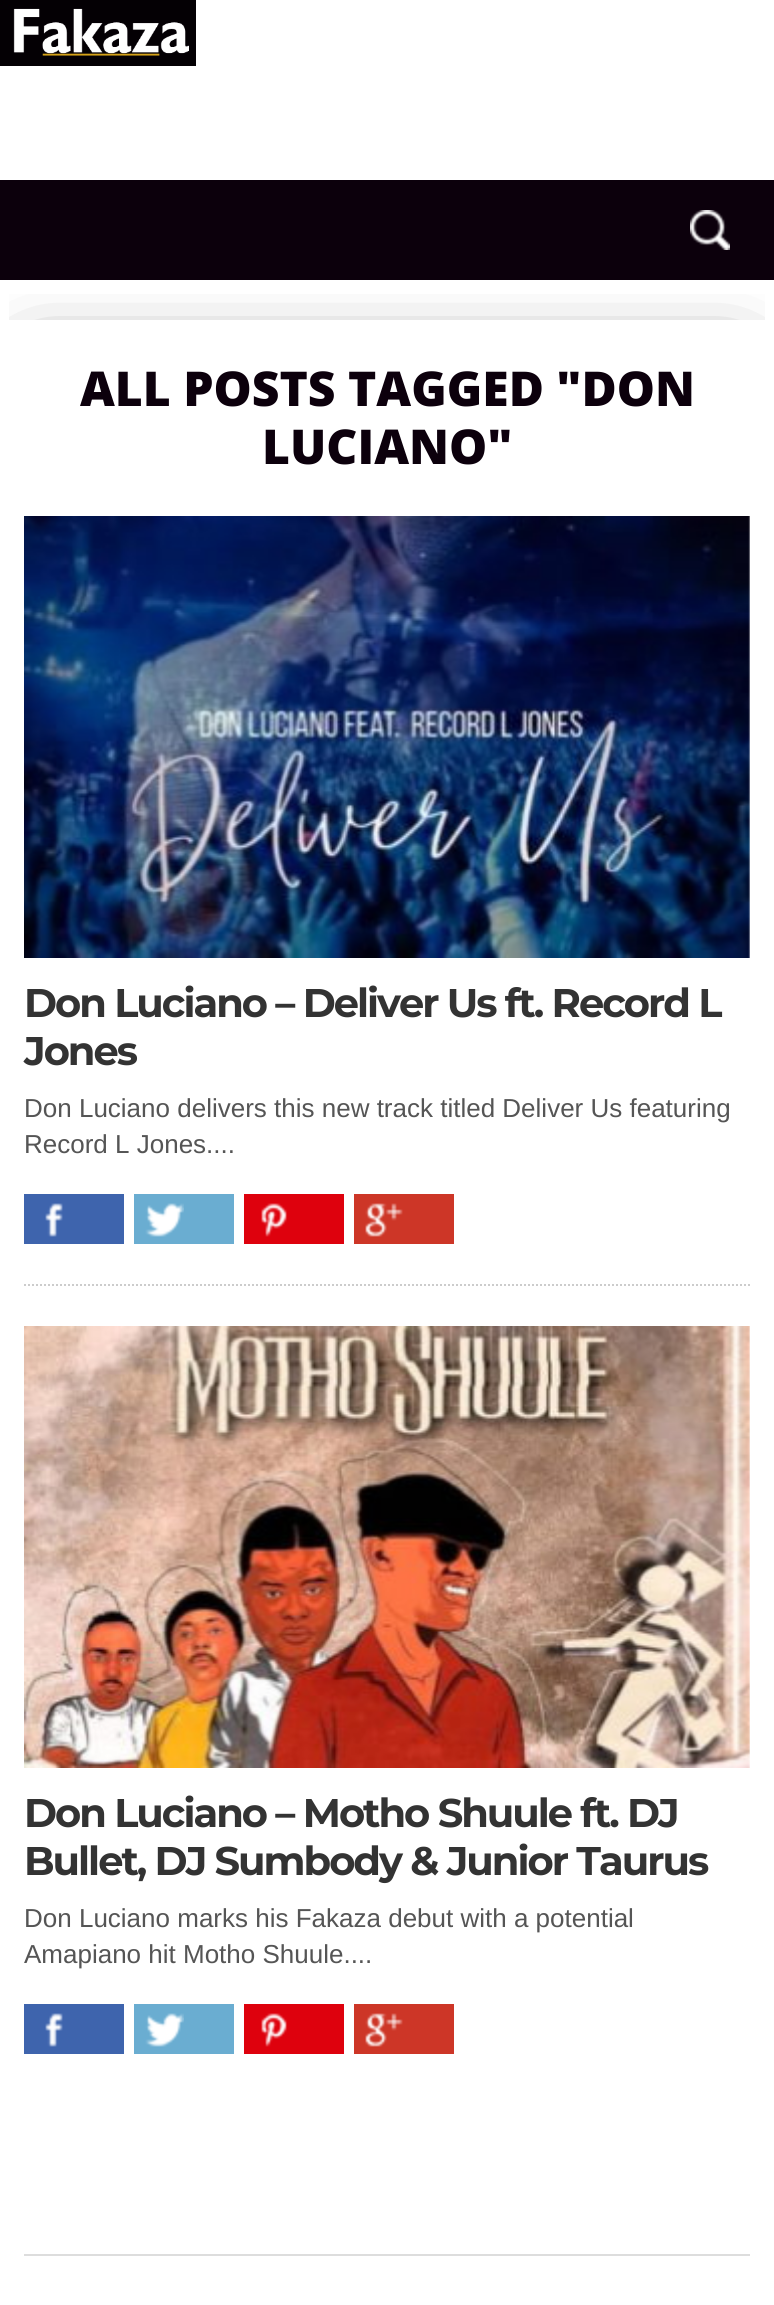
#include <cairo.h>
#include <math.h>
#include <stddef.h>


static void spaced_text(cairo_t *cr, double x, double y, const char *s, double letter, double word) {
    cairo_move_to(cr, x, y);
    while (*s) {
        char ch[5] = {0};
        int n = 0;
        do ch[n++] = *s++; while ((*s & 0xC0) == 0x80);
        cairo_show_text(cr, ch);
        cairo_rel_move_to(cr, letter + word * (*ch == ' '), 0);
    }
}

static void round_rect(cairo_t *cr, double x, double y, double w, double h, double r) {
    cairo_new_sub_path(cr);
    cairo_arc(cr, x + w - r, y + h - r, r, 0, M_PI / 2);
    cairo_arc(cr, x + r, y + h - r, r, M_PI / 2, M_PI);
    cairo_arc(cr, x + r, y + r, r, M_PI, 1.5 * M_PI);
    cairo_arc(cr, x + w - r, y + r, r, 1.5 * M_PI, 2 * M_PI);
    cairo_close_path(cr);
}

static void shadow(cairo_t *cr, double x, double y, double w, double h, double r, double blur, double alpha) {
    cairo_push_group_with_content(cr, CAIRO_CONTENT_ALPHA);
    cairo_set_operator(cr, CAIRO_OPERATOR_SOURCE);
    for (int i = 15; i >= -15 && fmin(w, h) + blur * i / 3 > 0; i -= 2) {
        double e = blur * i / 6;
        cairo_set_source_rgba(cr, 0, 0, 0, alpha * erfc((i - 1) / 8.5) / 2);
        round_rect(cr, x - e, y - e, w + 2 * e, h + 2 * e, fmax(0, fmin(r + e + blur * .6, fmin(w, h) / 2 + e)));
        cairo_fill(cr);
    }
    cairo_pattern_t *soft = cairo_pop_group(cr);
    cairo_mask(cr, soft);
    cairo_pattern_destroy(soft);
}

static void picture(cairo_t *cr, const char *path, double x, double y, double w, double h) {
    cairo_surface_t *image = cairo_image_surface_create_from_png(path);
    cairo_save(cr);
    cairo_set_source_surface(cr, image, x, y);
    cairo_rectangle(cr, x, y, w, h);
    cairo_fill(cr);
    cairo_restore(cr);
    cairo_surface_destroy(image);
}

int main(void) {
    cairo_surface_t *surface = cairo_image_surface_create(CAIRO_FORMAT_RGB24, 774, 2305);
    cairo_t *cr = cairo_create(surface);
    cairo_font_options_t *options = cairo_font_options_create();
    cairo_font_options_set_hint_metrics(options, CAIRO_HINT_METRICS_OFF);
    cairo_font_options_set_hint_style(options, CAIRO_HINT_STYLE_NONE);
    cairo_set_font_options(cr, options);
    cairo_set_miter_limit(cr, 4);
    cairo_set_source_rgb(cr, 1, 1, 1);
    cairo_paint(cr);
    picture(cr, "img1.png", 0, 0, 196, 66);
    cairo_save(cr);
    cairo_rectangle(cr, 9, 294, 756, 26);
    cairo_clip(cr);
    cairo_set_source_rgb(cr, 0, 0, 0);
    shadow(cr, 36, 376, 702, 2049, 0, 40, 1);
    cairo_restore(cr);
    cairo_set_source_rgb(cr, 0.047, 0, 0.047);
    cairo_rectangle(cr, 0, 180, 774, 100);
    cairo_fill(cr);
    picture(cr, "img2.png", 690, 210, 40, 40);
    cairo_select_font_face(cr, "Open Sans ExtraBold", CAIRO_FONT_SLANT_NORMAL, CAIRO_FONT_WEIGHT_NORMAL);
    cairo_set_font_size(cr, 48);
    cairo_move_to(cr, 80, 406);
    cairo_show_text(cr, "ALL POSTS TAGGED \"DON");
    cairo_move_to(cr, 262, 464);
    cairo_show_text(cr, "LUCIANO\"");
    picture(cr, "img3.png", 24, 516, 726, 442);
    cairo_select_font_face(cr, "Montserrat", CAIRO_FONT_SLANT_NORMAL, CAIRO_FONT_WEIGHT_BOLD);
    cairo_set_font_size(cr, 40);
    cairo_set_source_rgb(cr, 0.2, 0.2, 0.2);
    spaced_text(cr, 24, 1017, "Don Luciano – Deliver Us ft. Record L", -2, 0);
    spaced_text(cr, 24, 1065, "Jones", -2, 0);
    cairo_select_font_face(cr, "Liberation Sans", CAIRO_FONT_SLANT_NORMAL, CAIRO_FONT_WEIGHT_NORMAL);
    cairo_set_font_size(cr, 26);
    cairo_set_source_rgb(cr, 0.333, 0.333, 0.333);
    cairo_move_to(cr, 24, 1117);
    cairo_show_text(cr, "Don Luciano delivers this new track titled Deliver Us featuring");
    cairo_move_to(cr, 24, 1153);
    cairo_show_text(cr, "Record L Jones....");
    cairo_set_source_rgb(cr, 0.243, 0.392, 0.678);
    cairo_rectangle(cr, 24, 1194, 100, 50);
    cairo_fill(cr);
    picture(cr, "img4.png", 45, 1203, 18, 34);
    cairo_set_source_rgb(cr, 0.416, 0.678, 0.82);
    cairo_rectangle(cr, 134, 1194, 100, 50);
    cairo_fill(cr);
    picture(cr, "img5.png", 145, 1203, 39, 34);
    cairo_set_source_rgb(cr, 0.871, 0.004, 0.051);
    cairo_rectangle(cr, 244, 1194, 100, 50);
    cairo_fill(cr);
    picture(cr, "img6.png", 261, 1203, 26, 34);
    cairo_set_source_rgb(cr, 0.804, 0.212, 0.153);
    cairo_rectangle(cr, 354, 1194, 100, 50);
    cairo_fill(cr);
    picture(cr, "img7.png", 365, 1203, 38, 34);
    cairo_new_path(cr);
    cairo_move_to(cr, 24, 1285);
    cairo_line_to(cr, 750, 1285);
    cairo_set_source_rgb(cr, 0.8, 0.8, 0.8);
    cairo_set_dash(cr, (double[]){2, 2}, 2, 0);
    cairo_stroke(cr);
    picture(cr, "img8.png", 24, 1326, 726, 442);
    cairo_select_font_face(cr, "Montserrat", CAIRO_FONT_SLANT_NORMAL, CAIRO_FONT_WEIGHT_BOLD);
    cairo_set_font_size(cr, 40);
    cairo_set_source_rgb(cr, 0.2, 0.2, 0.2);
    spaced_text(cr, 24, 1827, "Don Luciano – Motho Shuule ft. DJ", -2, 0);
    spaced_text(cr, 24, 1875, "Bullet, DJ Sumbody & Junior Taurus", -2, 0);
    cairo_select_font_face(cr, "Liberation Sans", CAIRO_FONT_SLANT_NORMAL, CAIRO_FONT_WEIGHT_NORMAL);
    cairo_set_font_size(cr, 26);
    cairo_set_source_rgb(cr, 0.333, 0.333, 0.333);
    cairo_move_to(cr, 24, 1927);
    cairo_show_text(cr, "Don Luciano marks his Fakaza debut with a potential");
    cairo_move_to(cr, 24, 1963);
    cairo_show_text(cr, "Amapiano hit Motho Shuule....");
    cairo_set_source_rgb(cr, 0.243, 0.392, 0.678);
    cairo_rectangle(cr, 24, 2004, 100, 50);
    cairo_fill(cr);
    picture(cr, "img4.png", 45, 2013, 18, 34);
    cairo_set_source_rgb(cr, 0.416, 0.678, 0.82);
    cairo_rectangle(cr, 134, 2004, 100, 50);
    cairo_fill(cr);
    picture(cr, "img5.png", 145, 2013, 39, 34);
    cairo_set_source_rgb(cr, 0.871, 0.004, 0.051);
    cairo_rectangle(cr, 244, 2004, 100, 50);
    cairo_fill(cr);
    picture(cr, "img6.png", 261, 2013, 26, 34);
    cairo_set_source_rgb(cr, 0.804, 0.212, 0.153);
    cairo_rectangle(cr, 354, 2004, 100, 50);
    cairo_fill(cr);
    picture(cr, "img7.png", 365, 2013, 38, 34);
    cairo_set_source_rgb(cr, 0.867, 0.867, 0.867);
    cairo_rectangle(cr, 24, 2254, 726, 2);
    cairo_fill(cr);
    cairo_surface_write_to_png(surface, "page.png");
    cairo_font_options_destroy(options);
    cairo_destroy(cr);
    cairo_surface_destroy(surface);
    return 0;
}
